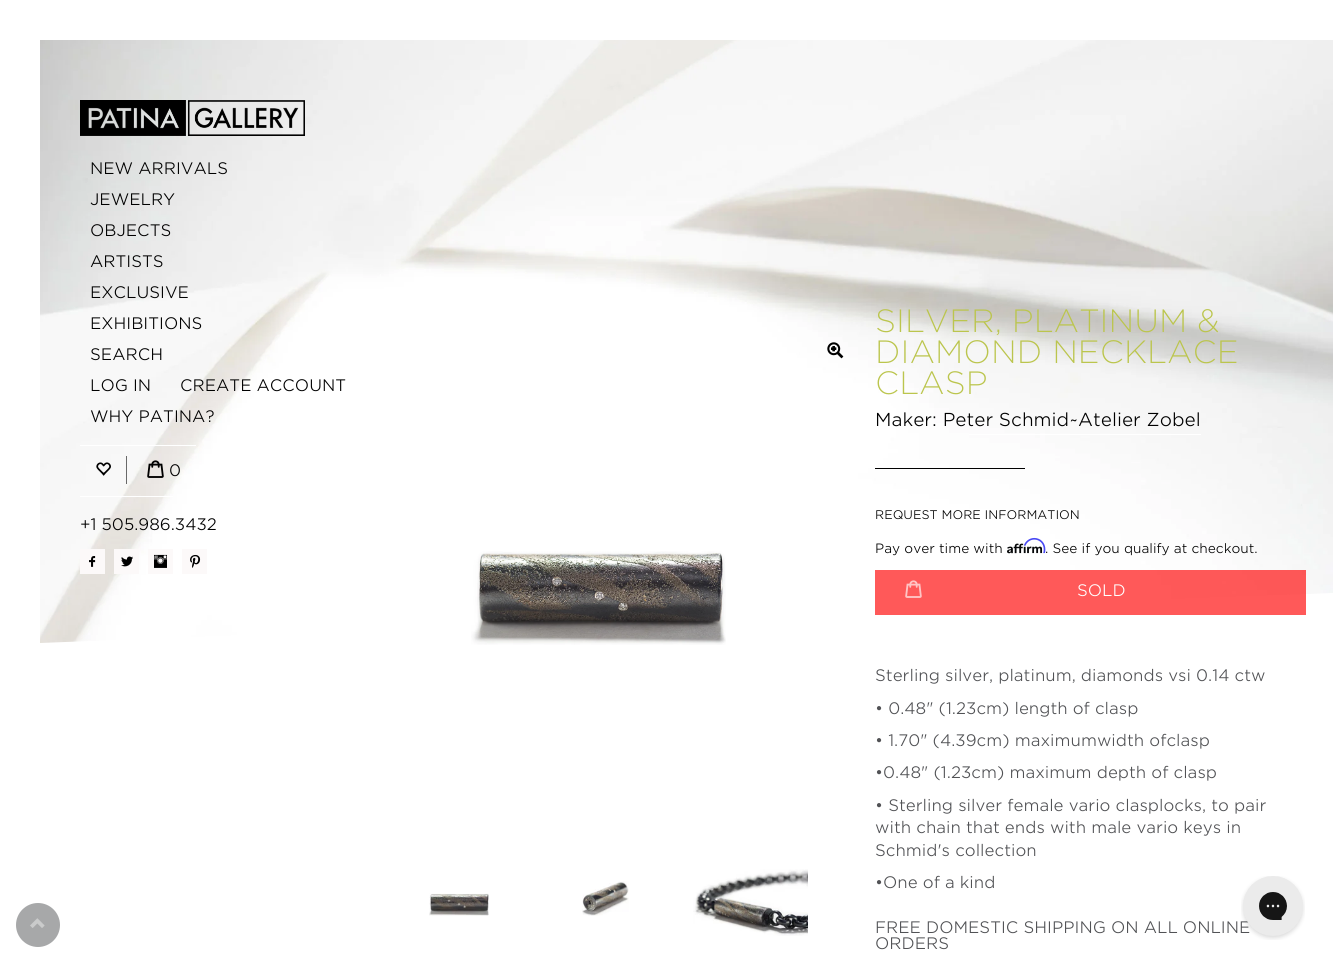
#include <cairo.h>
#include <math.h>
#include <stddef.h>


static void picture(cairo_t *cr, const char *path, double x, double y, double w, double h) {
    cairo_surface_t *image = cairo_image_surface_create_from_png(path);
    cairo_save(cr);
    cairo_set_source_surface(cr, image, x, y);
    cairo_rectangle(cr, x, y, w, h);
    cairo_fill(cr);
    cairo_restore(cr);
    cairo_surface_destroy(image);
}

int main(void) {
    cairo_surface_t *surface = cairo_image_surface_create(CAIRO_FORMAT_RGB24, 1333, 963);
    cairo_t *cr = cairo_create(surface);
    cairo_font_options_t *options = cairo_font_options_create();
    cairo_font_options_set_hint_metrics(options, CAIRO_HINT_METRICS_OFF);
    cairo_font_options_set_hint_style(options, CAIRO_HINT_STYLE_NONE);
    cairo_set_font_options(cr, options);
    cairo_set_miter_limit(cr, 4);
    cairo_set_source_rgb(cr, 1, 1, 1);
    cairo_paint(cr);
    cairo_set_source_rgb(cr, 0.655, 0.659, 0.663);
    cairo_arc(cr, 38, 925, 22, 0, 2 * M_PI);
    cairo_fill(cr);
    picture(cr, "img1.png", 30, 918, 15, 10);
    picture(cr, "img2.png", 40, 40, 1293, 603);
    picture(cr, "img3.png", 80, 100, 225, 36);
    cairo_select_font_face(cr, "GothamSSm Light", CAIRO_FONT_SLANT_NORMAL, CAIRO_FONT_WEIGHT_NORMAL);
    cairo_set_font_size(cr, 16);
    cairo_set_source_rgb(cr, 0, 0, 0);
    cairo_move_to(cr, 90, 174);
    cairo_show_text(cr, "NEW ARRIVALS");
    cairo_move_to(cr, 90, 205);
    cairo_show_text(cr, "JEWELRY");
    cairo_move_to(cr, 90, 236);
    cairo_show_text(cr, "OBJECTS");
    cairo_move_to(cr, 90, 267);
    cairo_show_text(cr, "ARTISTS");
    cairo_move_to(cr, 90, 298);
    cairo_show_text(cr, "EXCLUSIVE");
    cairo_move_to(cr, 90, 329);
    cairo_show_text(cr, "EXHIBITIONS");
    cairo_move_to(cr, 90, 360);
    cairo_show_text(cr, "SEARCH");
    cairo_move_to(cr, 90, 391);
    cairo_show_text(cr, "LOG IN");
    cairo_move_to(cr, 180, 391);
    cairo_show_text(cr, "CREATE ACCOUNT");
    cairo_move_to(cr, 90, 422);
    cairo_show_text(cr, "WHY PATINA?");
    cairo_set_source_rgb(cr, 1, 1, 1);
    cairo_rectangle(cr, 80, 445, 116, 1);
    cairo_fill(cr);
    cairo_rectangle(cr, 80, 496, 93, 1);
    cairo_fill(cr);
    cairo_set_source_rgb(cr, 0.412, 0.412, 0.412);
    cairo_rectangle(cr, 126, 456, 1, 28);
    cairo_fill(cr);
    picture(cr, "img4.png", 96, 462, 15, 14);
    picture(cr, "img5.png", 147, 460, 17, 18);
    cairo_set_source_rgb(cr, 0, 0, 0);
    cairo_move_to(cr, 169, 476);
    cairo_show_text(cr, "0");
    cairo_move_to(cr, 80, 530);
    cairo_show_text(cr, "+1 505.986.3432");
    cairo_set_source_rgb(cr, 0.988, 0.973, 0.973);
    cairo_rectangle(cr, 80, 549, 25, 25);
    cairo_fill(cr);
    picture(cr, "img6.png", 89, 556, 7, 11);
    cairo_rectangle(cr, 114, 549, 25, 25);
    cairo_fill(cr);
    picture(cr, "img7.png", 121, 556, 12, 11);
    cairo_rectangle(cr, 148, 549, 25, 25);
    cairo_fill(cr);
    picture(cr, "img8.png", 154, 554, 13, 14);
    cairo_rectangle(cr, 182, 549, 25, 25);
    cairo_fill(cr);
    picture(cr, "img9.png", 190, 554, 11, 14);
    picture(cr, "img10.png", 827, 342, 17, 17);
    picture(cr, "img11.png", 471, 551, 255, 94);
    picture(cr, "img12.png", 429, 893, 60, 23);
    picture(cr, "img13.png", 582, 881, 47, 35);
    picture(cr, "img14.png", 693, 869, 115, 67);
    cairo_select_font_face(cr, "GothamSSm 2 Light", CAIRO_FONT_SLANT_NORMAL, CAIRO_FONT_WEIGHT_NORMAL);
    cairo_set_font_size(cr, 31);
    cairo_set_source_rgb(cr, 0.733, 0.773, 0.302);
    cairo_move_to(cr, 875, 332);
    cairo_show_text(cr, "SILVER, PLATINUM &");
    cairo_move_to(cr, 875, 363);
    cairo_show_text(cr, "DIAMOND NECKLACE");
    cairo_move_to(cr, 875, 394);
    cairo_show_text(cr, "CLASP");
    cairo_select_font_face(cr, "GothamSSm Light", CAIRO_FONT_SLANT_NORMAL, CAIRO_FONT_WEIGHT_NORMAL);
    cairo_set_font_size(cr, 18);
    cairo_set_source_rgb(cr, 0, 0, 0);
    cairo_move_to(cr, 875, 426);
    cairo_show_text(cr, "Maker: Peter Schmid~Atelier Zobel");
    cairo_set_source_rgb(cr, 1, 1, 1);
    cairo_rectangle(cr, 969, 434, 232, 1);
    cairo_fill(cr);
    cairo_set_source_rgb(cr, 0, 0, 0);
    cairo_rectangle(cr, 875, 468, 150, 1);
    cairo_fill(cr);
    cairo_set_font_size(cr, 12);
    cairo_move_to(cr, 875, 519);
    cairo_show_text(cr, "REQUEST MORE INFORMATION");
    cairo_set_font_size(cr, 13);
    cairo_move_to(cr, 875, 553);
    cairo_show_text(cr, "Pay over time with");
    picture(cr, "img16.png", 1007, 543, 36, 11);
    picture(cr, "img15.png", 1023, 537, 23, 17);
    cairo_move_to(cr, 1045, 553);
    cairo_show_text(cr, ". See if you qualify at checkout.");
    cairo_set_source_rgba(cr, 1, 0, 0, 0.65);
    cairo_rectangle(cr, 875, 570, 431, 45);
    cairo_fill(cr);
    picture(cr, "img17.png", 905, 580, 17, 18);
    cairo_set_font_size(cr, 16);
    cairo_set_source_rgb(cr, 1, 1, 1);
    cairo_move_to(cr, 1077, 596);
    cairo_show_text(cr, "SOLD");
    cairo_set_source_rgb(cr, 0.318, 0.322, 0.333);
    cairo_move_to(cr, 875, 681);
    cairo_show_text(cr, "Sterling silver, platinum, diamonds vsi 0.14 ctw");
    cairo_move_to(cr, 875, 714);
    cairo_show_text(cr, "• 0.48\" (1.23cm) length of clasp");
    cairo_move_to(cr, 875, 746);
    cairo_show_text(cr, "• 1.70\" (4.39cm) maximumwidth ofclasp");
    cairo_move_to(cr, 875, 778);
    cairo_show_text(cr, "•0.48\" (1.23cm) maximum depth of clasp");
    cairo_move_to(cr, 875, 811);
    cairo_show_text(cr, "• Sterling silver female vario clasplocks, to pair");
    cairo_move_to(cr, 875, 833);
    cairo_show_text(cr, "with chain that ends with male vario keys in");
    cairo_move_to(cr, 875, 856);
    cairo_show_text(cr, "Schmid's collection");
    cairo_move_to(cr, 875, 888);
    cairo_show_text(cr, "•One of a kind");
    cairo_move_to(cr, 875, 933);
    cairo_show_text(cr, "FREE DOMESTIC SHIPPING ON ALL ONLINE");
    cairo_move_to(cr, 875, 949);
    cairo_show_text(cr, "ORDERS");
    picture(cr, "img18.png", 1241, 876, 64, 64);
    cairo_surface_write_to_png(surface, "page.png");
    cairo_font_options_destroy(options);
    cairo_destroy(cr);
    cairo_surface_destroy(surface);
    return 0;
}
